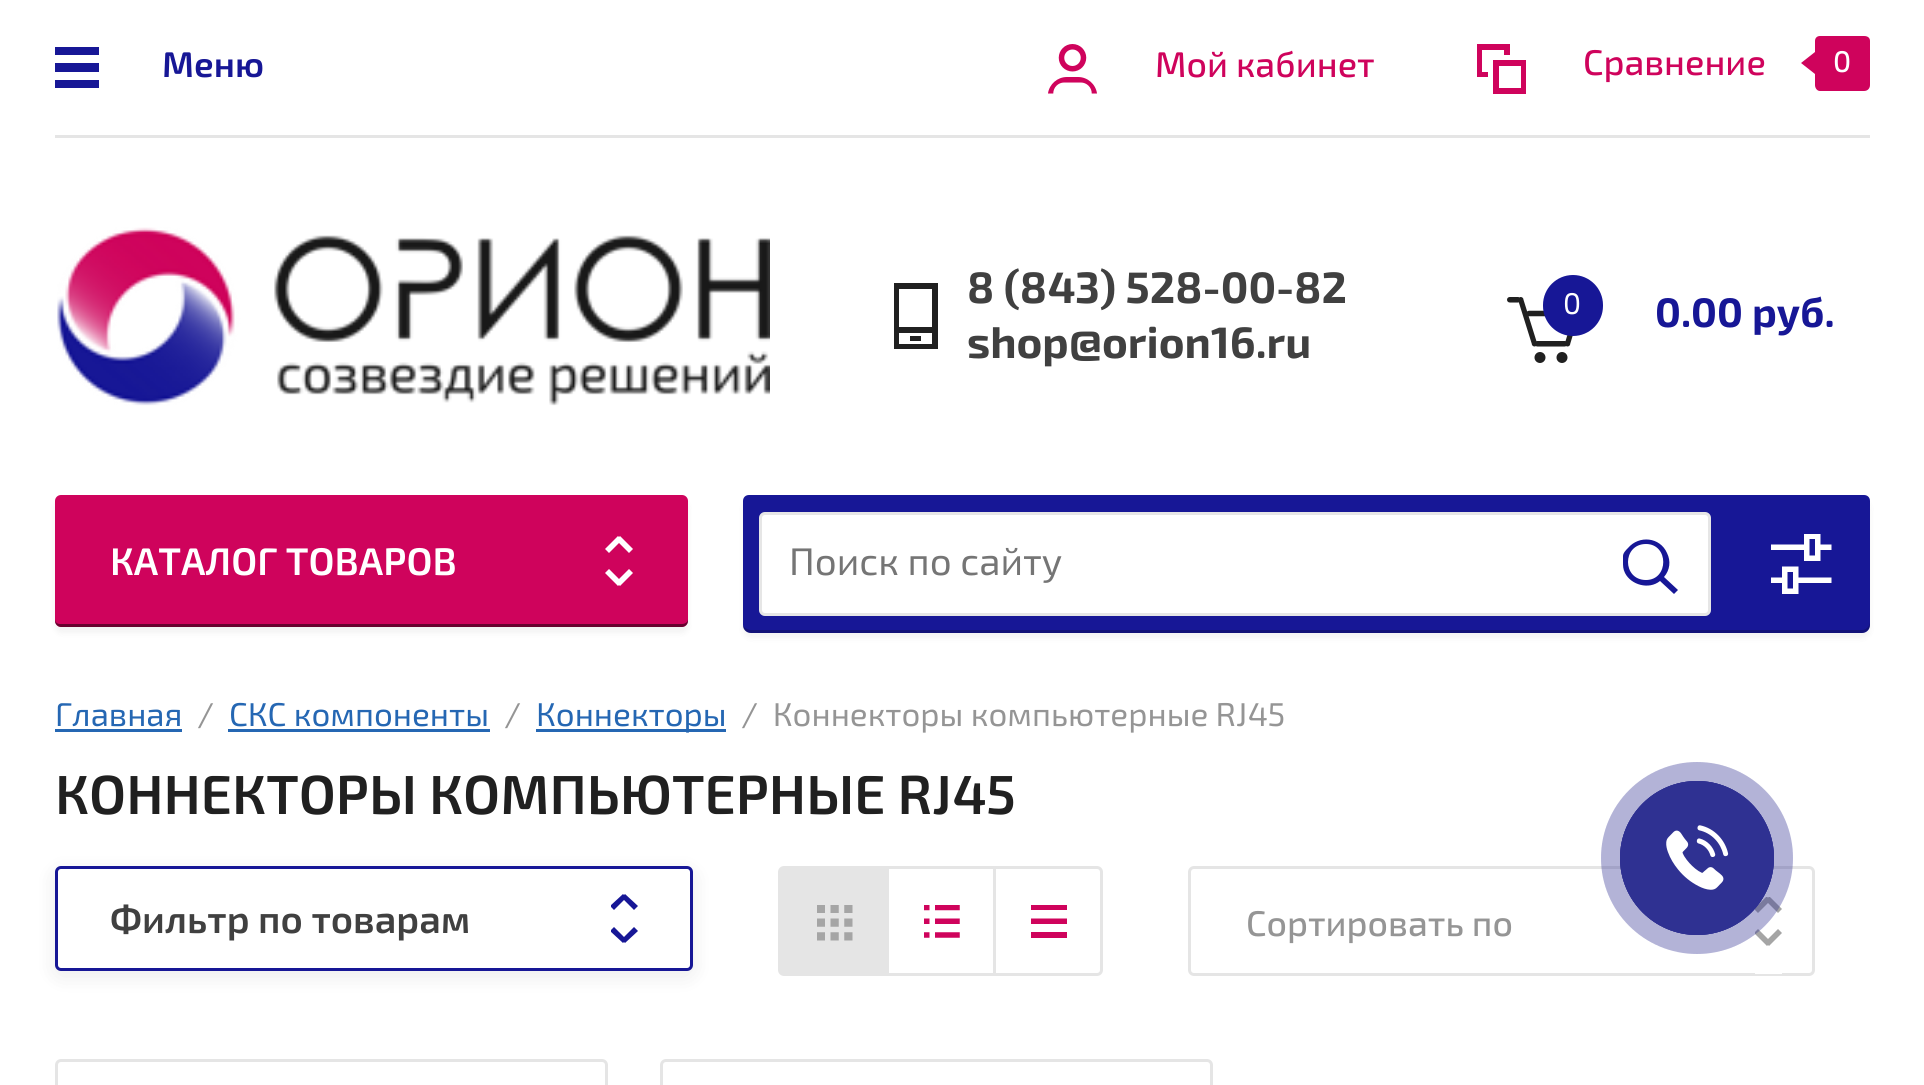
#include <cairo.h>
#include <math.h>
#include <stddef.h>


static void round_rect(cairo_t *cr, double x, double y, double w, double h, double r) {
    cairo_new_sub_path(cr);
    cairo_arc(cr, x + w - r, y + h - r, r, 0, M_PI / 2);
    cairo_arc(cr, x + r, y + h - r, r, M_PI / 2, M_PI);
    cairo_arc(cr, x + r, y + r, r, M_PI, 1.5 * M_PI);
    cairo_arc(cr, x + w - r, y + r, r, 1.5 * M_PI, 2 * M_PI);
    cairo_close_path(cr);
}

static void shadow(cairo_t *cr, double x, double y, double w, double h, double r, double blur, double alpha) {
    cairo_push_group_with_content(cr, CAIRO_CONTENT_ALPHA);
    cairo_set_operator(cr, CAIRO_OPERATOR_SOURCE);
    for (int i = 15; i >= -15 && fmin(w, h) + blur * i / 3 > 0; i -= 2) {
        double e = blur * i / 6;
        cairo_set_source_rgba(cr, 0, 0, 0, alpha * erfc((i - 1) / 8.5) / 2);
        round_rect(cr, x - e, y - e, w + 2 * e, h + 2 * e, fmax(0, fmin(r + e + blur * .6, fmin(w, h) / 2 + e)));
        cairo_fill(cr);
    }
    cairo_pattern_t *soft = cairo_pop_group(cr);
    cairo_mask(cr, soft);
    cairo_pattern_destroy(soft);
}

static void picture(cairo_t *cr, const char *path, double x, double y, double w, double h) {
    cairo_surface_t *image = cairo_image_surface_create_from_png(path);
    cairo_save(cr);
    cairo_set_source_surface(cr, image, x, y);
    cairo_rectangle(cr, x, y, w, h);
    cairo_fill(cr);
    cairo_restore(cr);
    cairo_surface_destroy(image);
}

int main(void) {
    cairo_surface_t *surface = cairo_image_surface_create(CAIRO_FORMAT_RGB24, 1924, 1085);
    cairo_t *cr = cairo_create(surface);
    cairo_font_options_t *options = cairo_font_options_create();
    cairo_font_options_set_hint_metrics(options, CAIRO_HINT_METRICS_OFF);
    cairo_font_options_set_hint_style(options, CAIRO_HINT_STYLE_NONE);
    cairo_set_font_options(cr, options);
    cairo_set_miter_limit(cr, 4);
    cairo_set_source_rgb(cr, 1, 1, 1);
    cairo_paint(cr);
    cairo_set_source_rgb(cr, 0.898, 0.898, 0.898);
    cairo_rectangle(cr, 55, 135, 1815, 3);
    cairo_fill(cr);
    cairo_set_source_rgb(cr, 0.09, 0.09, 0.588);
    cairo_new_path(cr);
    cairo_move_to(cr, 55, 88);
    cairo_line_to(cr, 55, 80);
    cairo_line_to(cr, 99, 80);
    cairo_line_to(cr, 99, 88);
    cairo_close_path(cr);
    cairo_move_to(cr, 55, 63);
    cairo_line_to(cr, 99, 63);
    cairo_line_to(cr, 99, 72);
    cairo_line_to(cr, 55, 72);
    cairo_close_path(cr);
    cairo_move_to(cr, 55, 47);
    cairo_line_to(cr, 99, 47);
    cairo_line_to(cr, 99, 55);
    cairo_line_to(cr, 55, 55);
    cairo_close_path(cr);
    cairo_fill(cr);
    cairo_select_font_face(cr, "Exo 2 SemiBold", CAIRO_FONT_SLANT_NORMAL, CAIRO_FONT_WEIGHT_NORMAL);
    cairo_set_font_size(cr, 35.75);
    cairo_move_to(cr, 162, 77);
    cairo_show_text(cr, "Меню");
    picture(cr, "img1.png", 1048, 44, 49, 50);
    cairo_select_font_face(cr, "Exo 2 Medium", CAIRO_FONT_SLANT_NORMAL, CAIRO_FONT_WEIGHT_NORMAL);
    cairo_set_source_rgb(cr, 0.812, 0.012, 0.361);
    cairo_move_to(cr, 1155, 77);
    cairo_show_text(cr, "Мой кабинет");
    cairo_new_path(cr);
    cairo_move_to(cr, 1493, 94);
    cairo_line_to(cr, 1493, 60);
    cairo_line_to(cr, 1526, 60);
    cairo_line_to(cr, 1526, 94);
    cairo_close_path(cr);
    cairo_move_to(cr, 1521, 66);
    cairo_line_to(cr, 1499, 66);
    cairo_line_to(cr, 1499, 88);
    cairo_line_to(cr, 1521, 88);
    cairo_close_path(cr);
    cairo_move_to(cr, 1504, 50);
    cairo_line_to(cr, 1482, 50);
    cairo_line_to(cr, 1482, 72);
    cairo_line_to(cr, 1488, 72);
    cairo_line_to(cr, 1488, 77);
    cairo_line_to(cr, 1477, 77);
    cairo_line_to(cr, 1477, 44);
    cairo_line_to(cr, 1510, 44);
    cairo_line_to(cr, 1510, 55);
    cairo_line_to(cr, 1504, 55);
    cairo_close_path(cr);
    cairo_fill(cr);
    cairo_move_to(cr, 1583, 75);
    cairo_show_text(cr, "Сравнение");
    cairo_new_path(cr);
    cairo_move_to(cr, 1864, 91);
    cairo_line_to(cr, 1820, 91);
    cairo_curve_to(cr, 1817, 91, 1815, 88, 1815, 85);
    cairo_line_to(cr, 1815, 41);
    cairo_curve_to(cr, 1815, 38, 1817, 36, 1820, 36);
    cairo_line_to(cr, 1864, 36);
    cairo_curve_to(cr, 1868, 36, 1870, 38, 1870, 41);
    cairo_line_to(cr, 1870, 85);
    cairo_curve_to(cr, 1870, 88, 1868, 91, 1864, 91);
    cairo_close_path(cr);
    cairo_move_to(cr, 1815, 52);
    cairo_line_to(cr, 1815, 74);
    cairo_line_to(cr, 1801, 63);
    cairo_close_path(cr);
    cairo_fill(cr);
    cairo_set_font_size(cr, 30);
    cairo_set_source_rgb(cr, 1, 1, 1);
    cairo_move_to(cr, 1833, 72);
    cairo_show_text(cr, "0");
    picture(cr, "img2.png", 57, 227, 713, 179);
    cairo_set_source_rgb(cr, 0.125, 0.125, 0.125);
    cairo_new_path(cr);
    cairo_move_to(cr, 894, 349);
    cairo_line_to(cr, 894, 283);
    cairo_line_to(cr, 938, 283);
    cairo_line_to(cr, 938, 349);
    cairo_close_path(cr);
    cairo_move_to(cr, 932, 289);
    cairo_line_to(cr, 899, 289);
    cairo_line_to(cr, 899, 327);
    cairo_line_to(cr, 932, 327);
    cairo_close_path(cr);
    cairo_move_to(cr, 932, 333);
    cairo_line_to(cr, 899, 333);
    cairo_line_to(cr, 899, 344);
    cairo_line_to(cr, 932, 344);
    cairo_close_path(cr);
    cairo_move_to(cr, 921, 341);
    cairo_line_to(cr, 910, 341);
    cairo_line_to(cr, 910, 336);
    cairo_line_to(cr, 921, 336);
    cairo_close_path(cr);
    cairo_fill(cr);
    cairo_select_font_face(cr, "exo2", CAIRO_FONT_SLANT_NORMAL, CAIRO_FONT_WEIGHT_BOLD);
    cairo_set_font_size(cr, 44);
    cairo_set_source_rgb(cr, 0.251, 0.251, 0.251);
    cairo_move_to(cr, 967, 303);
    cairo_show_text(cr, "8 (843) 528-00-82");
    cairo_move_to(cr, 967, 358);
    cairo_show_text(cr, "shop@orion16.ru");
    picture(cr, "img3.png", 1507, 297, 66, 66);
    cairo_set_source_rgb(cr, 0.09, 0.09, 0.588);
    round_rect(cr, 1543, 275, 60, 61, 30);
    cairo_fill(cr);
    cairo_select_font_face(cr, "exo2", CAIRO_FONT_SLANT_NORMAL, CAIRO_FONT_WEIGHT_NORMAL);
    cairo_set_font_size(cr, 30);
    cairo_set_source_rgb(cr, 1, 1, 1);
    cairo_move_to(cr, 1563, 314);
    cairo_show_text(cr, "0");
    cairo_select_font_face(cr, "exo2", CAIRO_FONT_SLANT_NORMAL, CAIRO_FONT_WEIGHT_BOLD);
    cairo_set_font_size(cr, 41.25);
    cairo_set_source_rgb(cr, 0.09, 0.09, 0.588);
    cairo_move_to(cr, 1655, 327);
    cairo_show_text(cr, "0.00 руб.");
    cairo_set_source_rgb(cr, 0, 0, 0);
    shadow(cr, 55, 501, 633, 132, 6, 3, 0.05);
    cairo_set_source_rgb(cr, 0.812, 0.012, 0.361);
    round_rect(cr, 55, 495, 633, 132, 6);
    cairo_fill(cr);
    cairo_set_source_rgb(cr, 1, 1, 1);
    cairo_new_path(cr);
    cairo_move_to(cr, 619, 543);
    cairo_line_to(cr, 609, 553);
    cairo_line_to(cr, 605, 549);
    cairo_line_to(cr, 618, 536);
    cairo_line_to(cr, 619, 537);
    cairo_line_to(cr, 620, 536);
    cairo_line_to(cr, 633, 549);
    cairo_line_to(cr, 629, 553);
    cairo_close_path(cr);
    cairo_move_to(cr, 619, 579);
    cairo_line_to(cr, 629, 569);
    cairo_line_to(cr, 633, 573);
    cairo_line_to(cr, 620, 586);
    cairo_line_to(cr, 619, 585);
    cairo_line_to(cr, 618, 586);
    cairo_line_to(cr, 605, 573);
    cairo_line_to(cr, 609, 569);
    cairo_close_path(cr);
    cairo_fill(cr);
    cairo_set_source_rgba(cr, 0, 0, 0, 0.5);
    cairo_new_path(cr);
    cairo_move_to(cr, 55, 619);
    cairo_line_to(cr, 55, 621);
    cairo_curve_to(cr, 55, 624, 58, 627, 61, 627);
    cairo_line_to(cr, 682, 627);
    cairo_curve_to(cr, 685, 627, 688, 624, 688, 621);
    cairo_line_to(cr, 688, 619);
    cairo_curve_to(cr, 688, 622, 685, 624, 682, 624);
    cairo_line_to(cr, 60, 624);
    cairo_curve_to(cr, 57, 624, 55, 622, 55, 619);
    cairo_close_path(cr);
    cairo_fill(cr);
    cairo_select_font_face(cr, "Exo 2 SemiBold", CAIRO_FONT_SLANT_NORMAL, CAIRO_FONT_WEIGHT_NORMAL);
    cairo_set_font_size(cr, 38.5);
    cairo_set_source_rgb(cr, 1, 1, 1);
    cairo_move_to(cr, 110, 575);
    cairo_show_text(cr, "КАТАЛОГ ТОВАРОВ");
    cairo_set_source_rgb(cr, 0, 0, 0);
    shadow(cr, 743, 501, 1127, 137, 8, 3, 0.05);
    cairo_set_source_rgb(cr, 0.09, 0.09, 0.588);
    cairo_new_path(cr);
    cairo_move_to(cr, 749, 495);
    cairo_line_to(cr, 1864, 495);
    cairo_curve_to(cr, 1867.5, 495, 1870, 497.5, 1870, 501);
    cairo_line_to(cr, 1870, 625);
    cairo_curve_to(cr, 1870, 629.5, 1866.5, 633, 1862, 633);
    cairo_line_to(cr, 751, 633);
    cairo_curve_to(cr, 746.5, 633, 743, 629.5, 743, 625);
    cairo_line_to(cr, 743, 501);
    cairo_curve_to(cr, 743, 497.5, 745.5, 495, 749, 495);
    cairo_close_path(cr);
    cairo_fill(cr);
    cairo_set_source_rgba(cr, 0, 0, 0, 0.2);
    cairo_new_path(cr);
    cairo_move_to(cr, 743, 626);
    cairo_curve_to(cr, 743, 630, 747, 633, 751, 633);
    cairo_line_to(cr, 1862, 633);
    cairo_curve_to(cr, 1866, 633, 1870, 629, 1870, 625);
    cairo_line_to(cr, 1870, 622);
    cairo_curve_to(cr, 1870, 626, 1866, 630, 1862, 630);
    cairo_line_to(cr, 751, 630);
    cairo_curve_to(cr, 748, 630, 745, 628, 743, 626);
    cairo_close_path(cr);
    cairo_fill(cr);
    cairo_set_source_rgb(cr, 1, 1, 1);
    round_rect(cr, 759, 512, 952, 104, 6);
    cairo_fill(cr);
    round_rect(cr, 760.5, 513.5, 949, 101, 4.5);
    cairo_set_source_rgba(cr, 0, 0, 0, 0.1);
    cairo_set_line_width(cr, 3);
    cairo_stroke(cr);
    cairo_select_font_face(cr, "exo2", CAIRO_FONT_SLANT_NORMAL, CAIRO_FONT_WEIGHT_NORMAL);
    cairo_set_source_rgb(cr, 0.459, 0.459, 0.459);
    cairo_move_to(cr, 789, 575);
    cairo_show_text(cr, "Поиск по сайту");
    cairo_set_source_rgb(cr, 0.09, 0.09, 0.588);
    cairo_set_fill_rule(cr, CAIRO_FILL_RULE_EVEN_ODD);
    cairo_new_path(cr);
    cairo_move_to(cr, 1678, 590);
    cairo_line_to(cr, 1664, 577);
    cairo_curve_to(cr, 1670, 570, 1671, 561, 1667, 553);
    cairo_curve_to(cr, 1660, 537, 1639, 535, 1628, 548);
    cairo_curve_to(cr, 1626, 550, 1623, 553, 1623, 556);
    cairo_line_to(cr, 1623, 562);
    cairo_curve_to(cr, 1623, 566, 1623, 569, 1625, 573);
    cairo_curve_to(cr, 1631, 585, 1649, 590, 1660, 581);
    cairo_line_to(cr, 1674, 594);
    cairo_close_path(cr);
    cairo_move_to(cr, 1646, 544);
    cairo_curve_to(cr, 1669, 544, 1669, 580, 1646, 580);
    cairo_curve_to(cr, 1622, 580, 1622, 544, 1646, 544);
    cairo_close_path(cr);
    cairo_fill(cr);
    picture(cr, "img4.png", 1771, 534, 61, 60);
    cairo_set_font_size(cr, 33);
    cairo_set_source_rgb(cr, 0.145, 0.404, 0.702);
    cairo_move_to(cr, 55, 726);
    cairo_show_text(cr, "Главная");
    cairo_rectangle(cr, 55, 729, 127, 3);
    cairo_fill(cr);
    cairo_set_source_rgb(cr, 0.584, 0.584, 0.584);
    cairo_move_to(cr, 197, 726);
    cairo_show_text(cr, "/");
    cairo_set_source_rgb(cr, 0.145, 0.404, 0.702);
    cairo_move_to(cr, 229, 726);
    cairo_show_text(cr, "СКС компоненты");
    cairo_rectangle(cr, 228, 729, 262, 3);
    cairo_fill(cr);
    cairo_set_source_rgb(cr, 0.584, 0.584, 0.584);
    cairo_move_to(cr, 504, 726);
    cairo_show_text(cr, "/");
    cairo_set_source_rgb(cr, 0.145, 0.404, 0.702);
    cairo_rectangle(cr, 536, 729, 190, 3);
    cairo_fill(cr);
    cairo_move_to(cr, 536, 726);
    cairo_show_text(cr, "Коннекторы");
    cairo_set_source_rgb(cr, 0.584, 0.584, 0.584);
    cairo_move_to(cr, 741, 726);
    cairo_show_text(cr, "/  Коннекторы компьютерные RJ45");
    cairo_select_font_face(cr, "Exo 2 SemiBold", CAIRO_FONT_SLANT_NORMAL, CAIRO_FONT_WEIGHT_NORMAL);
    cairo_set_font_size(cr, 55);
    cairo_set_source_rgb(cr, 0.125, 0.125, 0.125);
    cairo_move_to(cr, 55, 814);
    cairo_show_text(cr, "КОННЕКТОРЫ КОМПЬЮТЕРНЫЕ RJ45");
    cairo_set_source_rgb(cr, 0, 0, 0);
    shadow(cr, 55, 872, 638, 104, 6, 11, 0.08);
    cairo_set_source_rgb(cr, 1, 1, 1);
    round_rect(cr, 56.5, 867.5, 635, 102, 4.5);
    cairo_fill_preserve(cr);
    cairo_set_source_rgb(cr, 0.09, 0.09, 0.588);
    cairo_stroke(cr);
    cairo_set_font_size(cr, 38.5);
    cairo_set_source_rgb(cr, 0.251, 0.251, 0.251);
    cairo_move_to(cr, 110, 933);
    cairo_show_text(cr, "Фильтр по товарам");
    cairo_save(cr);
    cairo_set_fill_rule(cr, CAIRO_FILL_RULE_WINDING);
    cairo_rectangle(cr, 611, 894, 27, 49);
    cairo_clip(cr);
    cairo_set_source_rgb(cr, 0.09, 0.09, 0.588);
    cairo_new_path(cr);
    cairo_move_to(cr, 624, 900);
    cairo_line_to(cr, 614, 910);
    cairo_line_to(cr, 610, 906);
    cairo_line_to(cr, 623, 894);
    cairo_line_to(cr, 624, 895);
    cairo_line_to(cr, 625, 894);
    cairo_line_to(cr, 638, 906);
    cairo_line_to(cr, 634, 910);
    cairo_close_path(cr);
    cairo_move_to(cr, 624, 937);
    cairo_line_to(cr, 634, 927);
    cairo_line_to(cr, 638, 931);
    cairo_line_to(cr, 625, 943);
    cairo_line_to(cr, 624, 942);
    cairo_line_to(cr, 623, 943);
    cairo_line_to(cr, 610, 931);
    cairo_line_to(cr, 614, 927);
    cairo_close_path(cr);
    cairo_fill(cr);
    cairo_restore(cr);
    round_rect(cr, 779.5, 867.5, 322, 107, 4.5);
    cairo_set_source_rgb(cr, 0.898, 0.898, 0.898);
    cairo_stroke(cr);
    cairo_rectangle(cr, 781, 869, 105, 104);
    cairo_fill(cr);
    cairo_rectangle(cr, 886, 869, 3, 105);
    cairo_fill(cr);
    picture(cr, "img5.png", 817, 905, 36, 36);
    picture(cr, "img6.png", 924, 905, 36, 33);
    cairo_rectangle(cr, 993, 869, 3, 105);
    cairo_fill(cr);
    cairo_set_source_rgb(cr, 0.812, 0.012, 0.361);
    cairo_set_fill_rule(cr, CAIRO_FILL_RULE_WINDING);
    cairo_new_path(cr);
    cairo_move_to(cr, 1031, 938);
    cairo_line_to(cr, 1031, 932);
    cairo_line_to(cr, 1067, 932);
    cairo_line_to(cr, 1067, 938);
    cairo_close_path(cr);
    cairo_move_to(cr, 1031, 918.5);
    cairo_line_to(cr, 1067, 918.5);
    cairo_line_to(cr, 1067, 924);
    cairo_line_to(cr, 1031, 924);
    cairo_close_path(cr);
    cairo_move_to(cr, 1031, 905);
    cairo_line_to(cr, 1067, 905);
    cairo_line_to(cr, 1067, 910);
    cairo_line_to(cr, 1031, 910);
    cairo_close_path(cr);
    cairo_fill(cr);
    round_rect(cr, 1189.5, 867.5, 624, 107, 4.5);
    cairo_set_source_rgb(cr, 0.898, 0.898, 0.898);
    cairo_stroke(cr);
    cairo_select_font_face(cr, "Exo 2 Medium", CAIRO_FONT_SLANT_NORMAL, CAIRO_FONT_WEIGHT_NORMAL);
    cairo_set_font_size(cr, 35.75);
    cairo_set_source_rgb(cr, 0.584, 0.584, 0.584);
    cairo_move_to(cr, 1246, 936);
    cairo_show_text(cr, "Сортировать по");
    cairo_set_source_rgb(cr, 1, 1, 1);
    cairo_rectangle(cr, 1755, 973, 27, 1);
    cairo_fill(cr);
    cairo_save(cr);
    cairo_rectangle(cr, 1755, 897, 27, 49);
    cairo_clip(cr);
    cairo_set_source_rgb(cr, 0.647, 0.647, 0.647);
    cairo_new_path(cr);
    cairo_move_to(cr, 1768, 903);
    cairo_line_to(cr, 1758, 913);
    cairo_line_to(cr, 1754, 909);
    cairo_line_to(cr, 1767, 896);
    cairo_line_to(cr, 1768, 898);
    cairo_line_to(cr, 1769, 896);
    cairo_line_to(cr, 1782, 909);
    cairo_line_to(cr, 1778, 913);
    cairo_close_path(cr);
    cairo_move_to(cr, 1768, 939);
    cairo_line_to(cr, 1778, 929);
    cairo_line_to(cr, 1782, 933);
    cairo_line_to(cr, 1769, 946);
    cairo_line_to(cr, 1768, 945);
    cairo_line_to(cr, 1767, 946);
    cairo_line_to(cr, 1754, 933);
    cairo_line_to(cr, 1758, 929);
    cairo_close_path(cr);
    cairo_fill(cr);
    cairo_restore(cr);
    round_rect(cr, 56.5, 1060.5, 550, 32, 4.5);
    cairo_set_source_rgb(cr, 0.898, 0.898, 0.898);
    cairo_stroke(cr);
    round_rect(cr, 661.5, 1060.5, 550, 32, 4.5);
    cairo_stroke(cr);
    cairo_set_source_rgba(cr, 0.184, 0.192, 0.573, 0.2);
    cairo_arc(cr, 1697, 858, 96, 0, 2 * M_PI);
    cairo_fill(cr);
    cairo_arc(cr, 1697, 858, 76, 0, 2 * M_PI);
    cairo_set_source_rgb(cr, 0.184, 0.192, 0.573);
    cairo_set_line_width(cr, 2);
    cairo_stroke(cr);
    cairo_set_source_rgba(cr, 0.184, 0.192, 0.573, 0.2);
    cairo_arc(cr, 1697, 858, 96, 0, 2 * M_PI);
    cairo_fill(cr);
    cairo_arc(cr, 1697, 858, 76, 0, 2 * M_PI);
    cairo_set_source_rgb(cr, 0.184, 0.192, 0.573);
    cairo_stroke(cr);
    cairo_arc(cr, 1697, 858, 77, 0, 2 * M_PI);
    cairo_fill(cr);
    picture(cr, "img7.png", 1666, 825, 63, 65);
    cairo_surface_write_to_png(surface, "page.png");
    cairo_font_options_destroy(options);
    cairo_destroy(cr);
    cairo_surface_destroy(surface);
    return 0;
}
